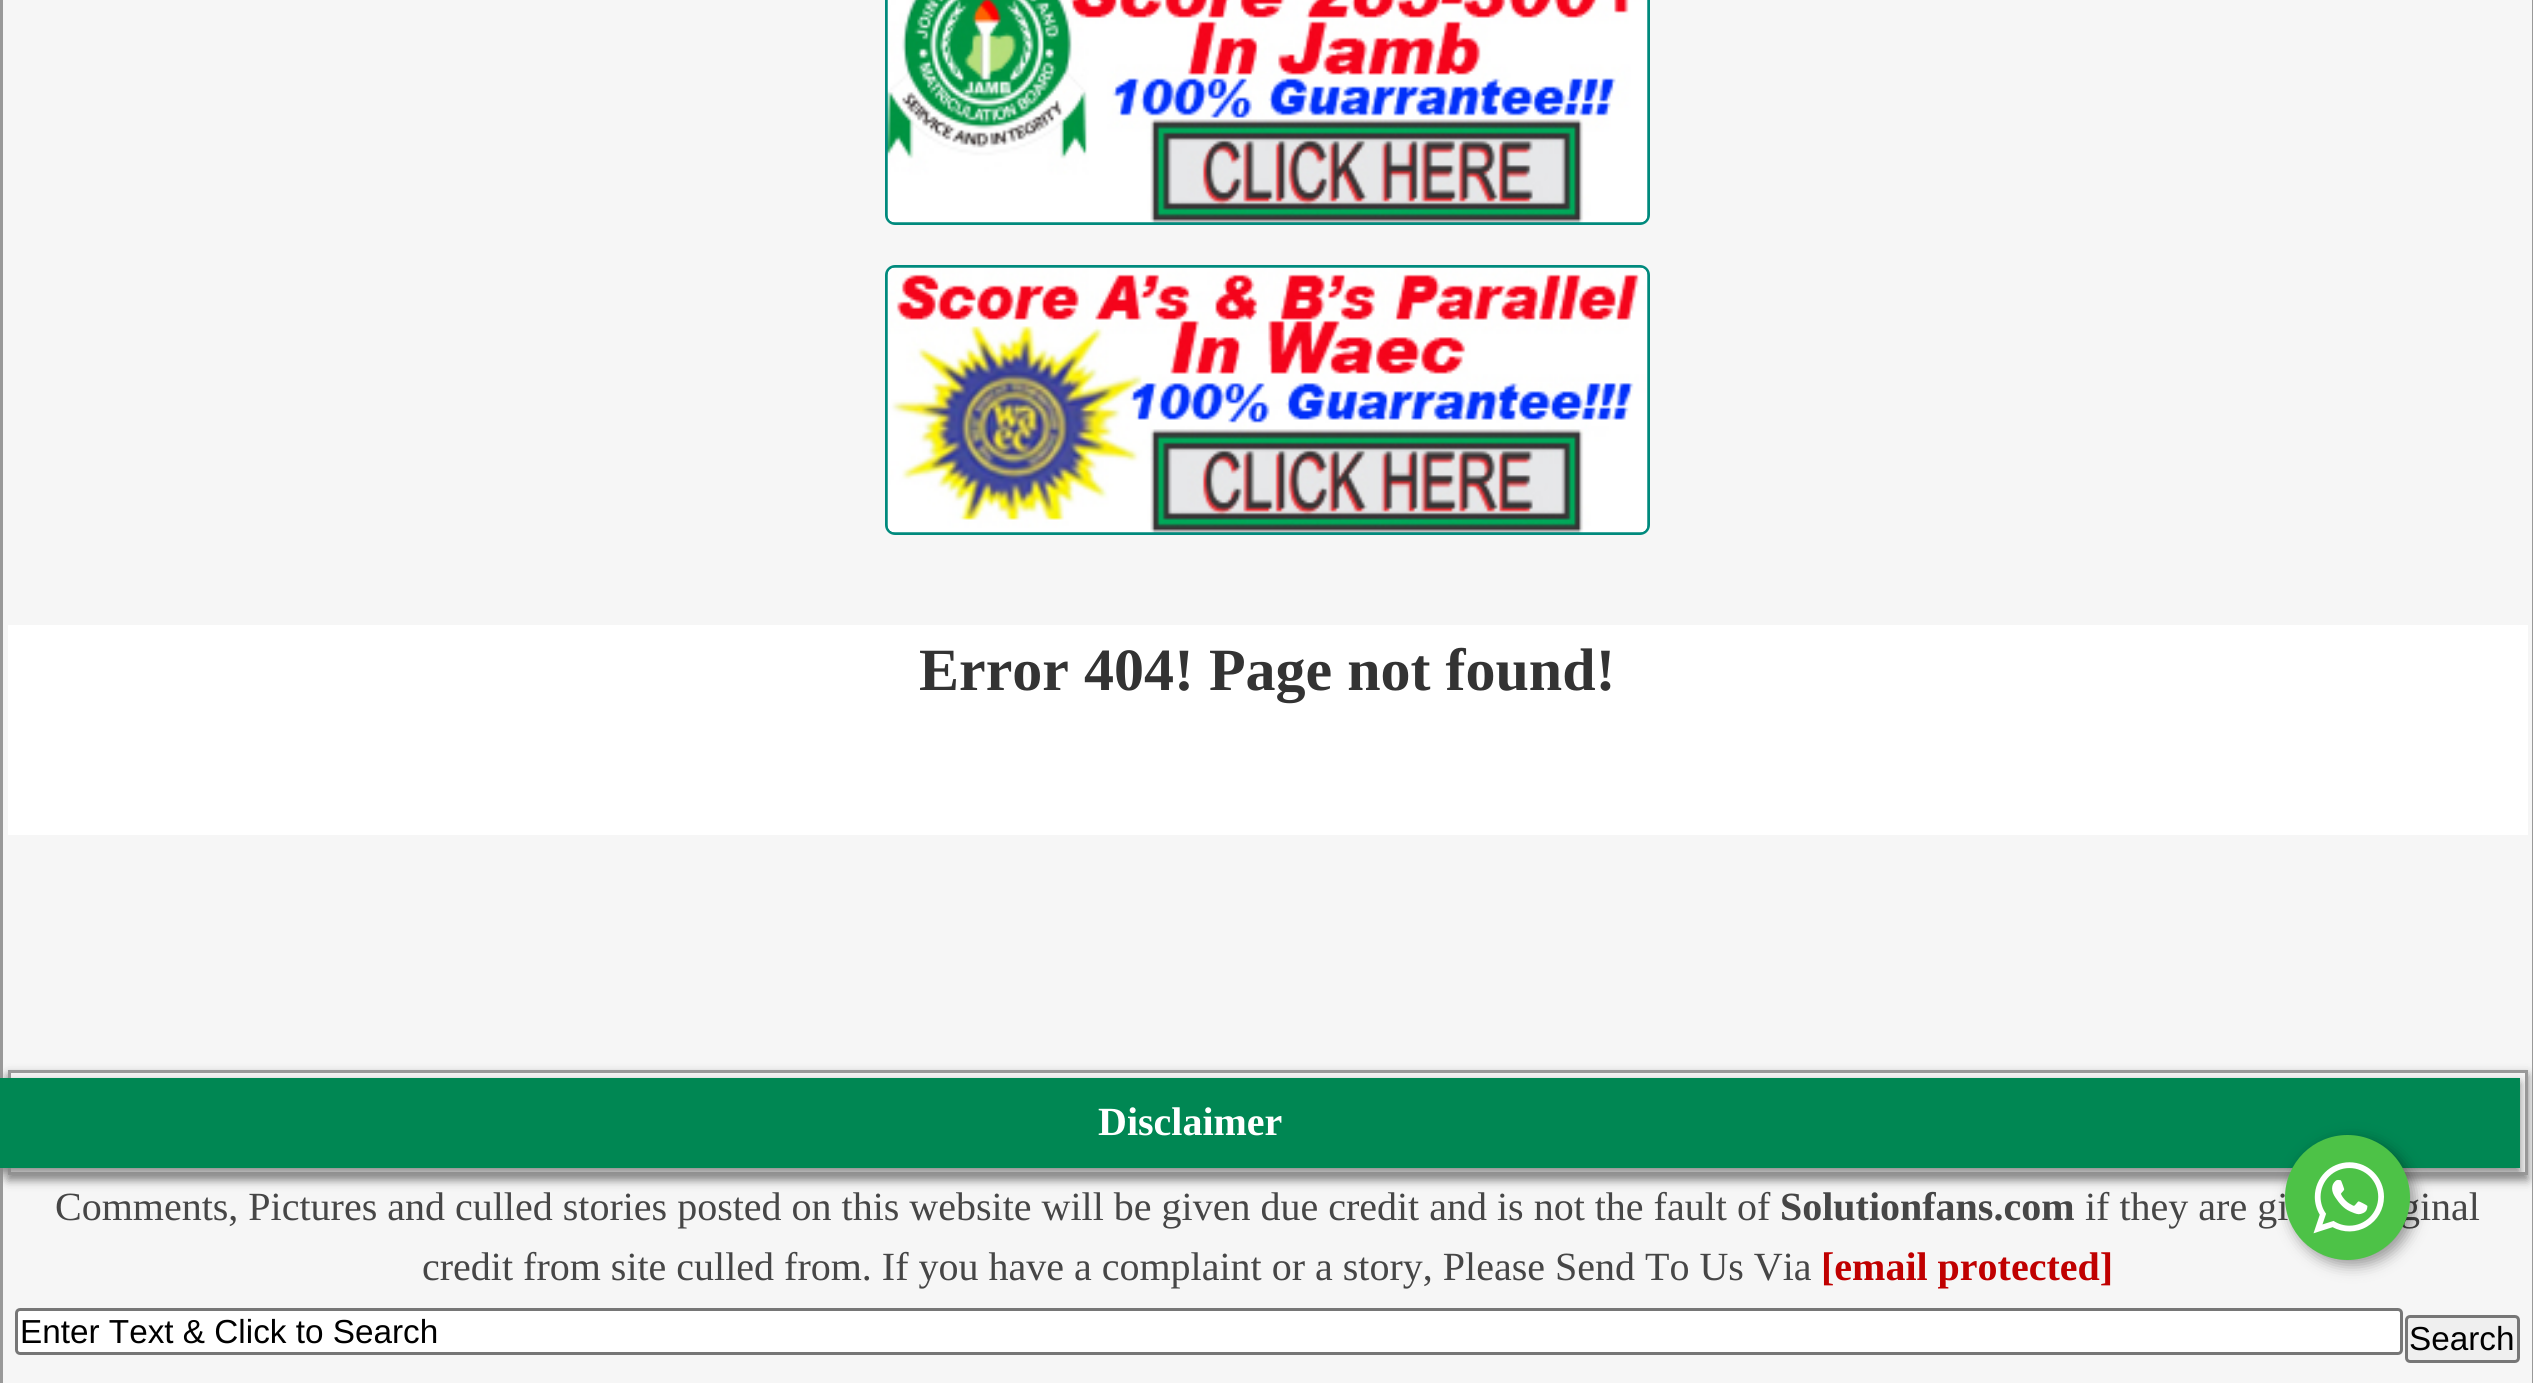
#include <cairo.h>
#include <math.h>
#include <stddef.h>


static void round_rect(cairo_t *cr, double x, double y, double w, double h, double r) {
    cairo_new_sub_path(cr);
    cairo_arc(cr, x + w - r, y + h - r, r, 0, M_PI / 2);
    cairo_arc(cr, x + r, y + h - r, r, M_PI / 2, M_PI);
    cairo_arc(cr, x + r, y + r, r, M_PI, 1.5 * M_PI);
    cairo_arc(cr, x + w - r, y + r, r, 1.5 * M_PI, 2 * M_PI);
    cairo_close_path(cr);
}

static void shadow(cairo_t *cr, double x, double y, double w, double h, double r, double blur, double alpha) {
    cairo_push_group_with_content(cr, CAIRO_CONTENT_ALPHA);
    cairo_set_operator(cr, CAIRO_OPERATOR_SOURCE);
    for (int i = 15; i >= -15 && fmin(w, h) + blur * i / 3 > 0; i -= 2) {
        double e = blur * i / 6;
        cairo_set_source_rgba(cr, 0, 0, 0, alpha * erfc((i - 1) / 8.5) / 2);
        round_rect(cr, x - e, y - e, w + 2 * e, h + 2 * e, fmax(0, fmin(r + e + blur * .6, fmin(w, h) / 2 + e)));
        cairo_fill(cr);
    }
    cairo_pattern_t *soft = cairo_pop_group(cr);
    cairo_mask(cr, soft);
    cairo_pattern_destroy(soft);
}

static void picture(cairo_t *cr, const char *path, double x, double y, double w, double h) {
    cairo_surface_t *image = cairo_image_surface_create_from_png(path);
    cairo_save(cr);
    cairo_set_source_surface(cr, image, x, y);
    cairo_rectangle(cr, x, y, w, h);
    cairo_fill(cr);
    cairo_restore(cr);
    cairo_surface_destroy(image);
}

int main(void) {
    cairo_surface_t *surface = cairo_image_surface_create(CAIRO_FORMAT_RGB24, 2533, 1383);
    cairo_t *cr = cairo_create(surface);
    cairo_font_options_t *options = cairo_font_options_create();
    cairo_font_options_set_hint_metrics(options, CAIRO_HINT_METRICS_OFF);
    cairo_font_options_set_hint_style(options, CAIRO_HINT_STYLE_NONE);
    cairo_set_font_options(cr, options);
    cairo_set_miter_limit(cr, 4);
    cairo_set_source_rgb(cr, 0.961, 0.961, 0.961);
    cairo_paint(cr);
    cairo_rectangle(cr, 1.5, -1.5, 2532, 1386);
    cairo_set_source_rgb(cr, 0.6, 0.6, 0.6);
    cairo_set_line_width(cr, 3);
    cairo_stroke(cr);
    round_rect(cr, 886.5, -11.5, 762, 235, 8.5);
    cairo_set_source_rgb(cr, 0, 0.541, 0.49);
    cairo_stroke(cr);
    picture(cr, "img1.png", 887, 0, 761, 223);
    round_rect(cr, 886.5, 266.5, 762, 267, 8.5);
    cairo_stroke(cr);
    picture(cr, "img2.png", 887, 267, 761, 266);
    cairo_set_source_rgb(cr, 1, 1, 1);
    cairo_rectangle(cr, 8, 625, 2520, 210);
    cairo_fill(cr);
    cairo_select_font_face(cr, "Liberation Serif", CAIRO_FONT_SLANT_NORMAL, CAIRO_FONT_WEIGHT_BOLD);
    cairo_set_font_size(cr, 60);
    cairo_set_source_rgb(cr, 0.2, 0.2, 0.2);
    cairo_move_to(cr, 919, 690);
    cairo_show_text(cr, "Error 404! Page not found!");
    cairo_set_source_rgb(cr, 0.533, 0.533, 0.533);
    shadow(cr, 8, 1075, 2520, 105, 0, 5, 1);
    cairo_set_source_rgb(cr, 0.961, 0.961, 0.961);
    cairo_rectangle(cr, 9.5, 1071.5, 2517, 102);
    cairo_fill_preserve(cr);
    cairo_set_source_rgb(cr, 0.6, 0.6, 0.6);
    cairo_stroke(cr);
    cairo_set_source_rgb(cr, 0.533, 0.533, 0.533);
    shadow(cr, -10, 1083, 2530, 90, 0, 5, 1);
    cairo_set_source_rgb(cr, 0, 0.529, 0.325);
    cairo_rectangle(cr, 0, 1078, 2520, 90);
    cairo_fill(cr);
    cairo_set_font_size(cr, 40);
    cairo_set_source_rgb(cr, 1, 1, 1);
    cairo_move_to(cr, 1098, 1135);
    cairo_show_text(cr, "Disclaimer");
    cairo_select_font_face(cr, "Liberation Serif", CAIRO_FONT_SLANT_NORMAL, CAIRO_FONT_WEIGHT_NORMAL);
    cairo_set_source_rgb(cr, 0.275, 0.275, 0.275);
    cairo_move_to(cr, 55, 1220);
    cairo_show_text(cr, "Comments, Pictures and culled stories posted on this website will be given due credit and is not the fault of");
    cairo_select_font_face(cr, "Liberation Serif", CAIRO_FONT_SLANT_NORMAL, CAIRO_FONT_WEIGHT_BOLD);
    cairo_move_to(cr, 1780, 1220);
    cairo_show_text(cr, "Solutionfans.com");
    cairo_select_font_face(cr, "Liberation Serif", CAIRO_FONT_SLANT_NORMAL, CAIRO_FONT_WEIGHT_NORMAL);
    cairo_move_to(cr, 2085, 1220);
    cairo_show_text(cr, "if they are gi");
    cairo_move_to(cr, 2400, 1220);
    cairo_show_text(cr, "ginal");
    cairo_move_to(cr, 422, 1280);
    cairo_show_text(cr, "credit from site culled from. If you have a complaint or a story, Please Send To Us Via");
    cairo_select_font_face(cr, "Liberation Serif", CAIRO_FONT_SLANT_NORMAL, CAIRO_FONT_WEIGHT_BOLD);
    cairo_set_source_rgb(cr, 0.753, 0, 0);
    cairo_move_to(cr, 1821, 1280);
    cairo_show_text(cr, "[email protected]");
    cairo_set_source_rgb(cr, 1, 1, 1);
    round_rect(cr, 16.5, 1309.5, 2385, 44, 3.5);
    cairo_fill_preserve(cr);
    cairo_set_source_rgb(cr, 0.463, 0.463, 0.463);
    cairo_stroke(cr);
    cairo_select_font_face(cr, "Liberation Sans", CAIRO_FONT_SLANT_NORMAL, CAIRO_FONT_WEIGHT_NORMAL);
    cairo_set_font_size(cr, 33.3);
    cairo_set_source_rgb(cr, 0, 0, 0);
    cairo_move_to(cr, 20, 1343);
    cairo_show_text(cr, "Enter Text & Click to Search");
    cairo_set_source_rgb(cr, 0.937, 0.937, 0.937);
    round_rect(cr, 2406.5, 1316.5, 112, 45, 3.5);
    cairo_fill_preserve(cr);
    cairo_set_source_rgb(cr, 0.463, 0.463, 0.463);
    cairo_stroke(cr);
    cairo_set_source_rgb(cr, 0, 0, 0);
    cairo_move_to(cr, 2409, 1350);
    cairo_show_text(cr, "Search");
    cairo_set_source_rgb(cr, 0, 0, 0);
    shadow(cr, 2290, 1140, 125, 125, 62.5, 7.5, 0.4);
    cairo_set_source_rgb(cr, 0.302, 0.761, 0.278);
    cairo_arc(cr, 2347.5, 1197.5, 62.5, 0, 2 * M_PI);
    cairo_fill(cr);
    picture(cr, "img3.png", 2313, 1162, 71, 72);
    cairo_surface_write_to_png(surface, "page.png");
    cairo_font_options_destroy(options);
    cairo_destroy(cr);
    cairo_surface_destroy(surface);
    return 0;
}
